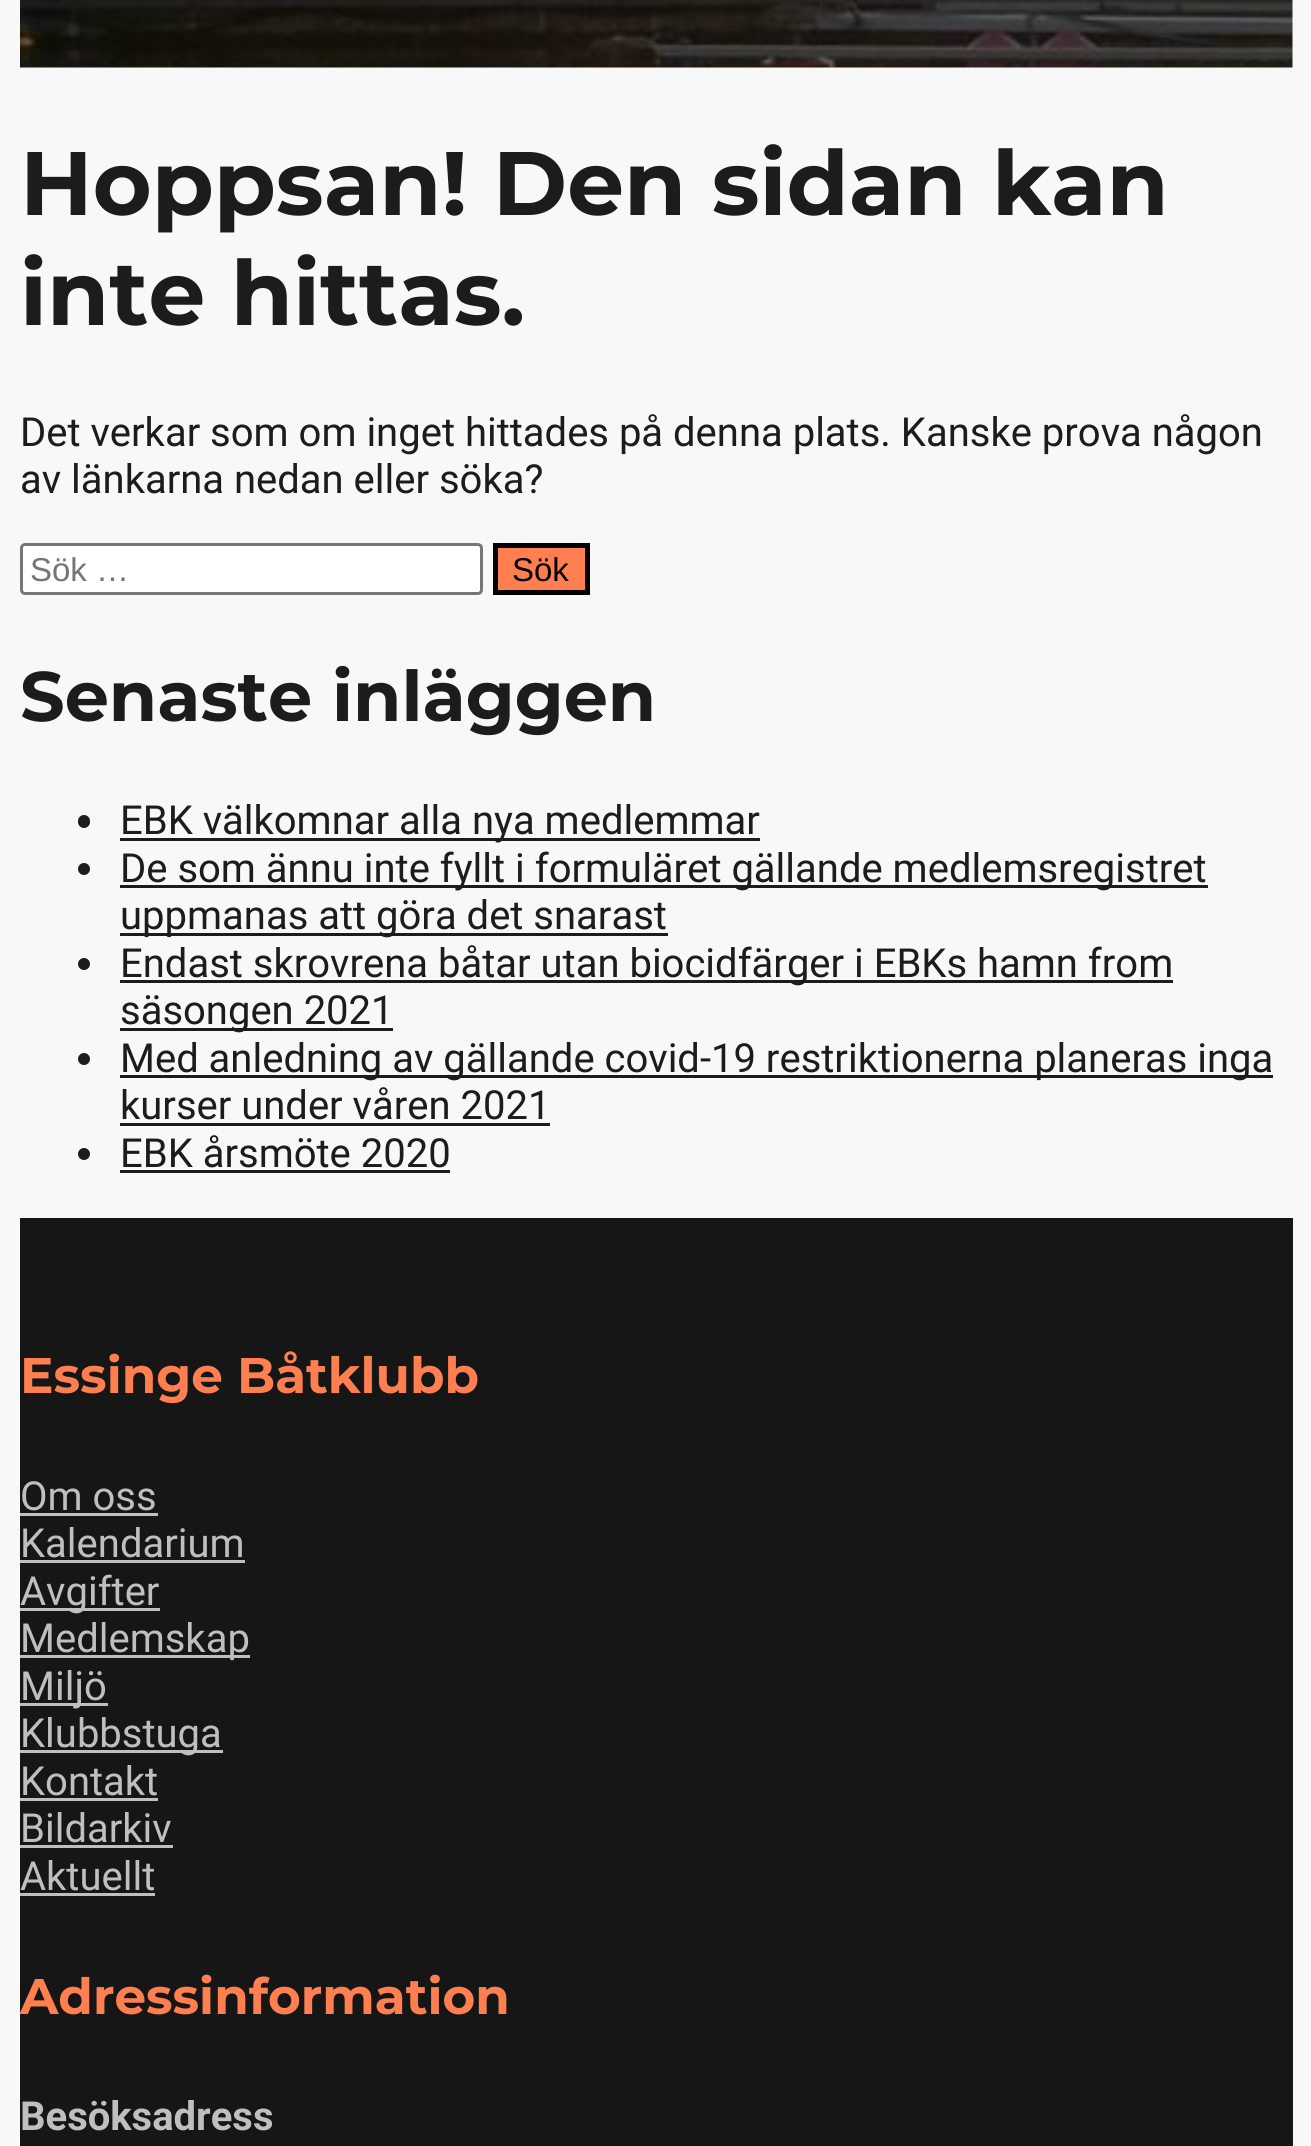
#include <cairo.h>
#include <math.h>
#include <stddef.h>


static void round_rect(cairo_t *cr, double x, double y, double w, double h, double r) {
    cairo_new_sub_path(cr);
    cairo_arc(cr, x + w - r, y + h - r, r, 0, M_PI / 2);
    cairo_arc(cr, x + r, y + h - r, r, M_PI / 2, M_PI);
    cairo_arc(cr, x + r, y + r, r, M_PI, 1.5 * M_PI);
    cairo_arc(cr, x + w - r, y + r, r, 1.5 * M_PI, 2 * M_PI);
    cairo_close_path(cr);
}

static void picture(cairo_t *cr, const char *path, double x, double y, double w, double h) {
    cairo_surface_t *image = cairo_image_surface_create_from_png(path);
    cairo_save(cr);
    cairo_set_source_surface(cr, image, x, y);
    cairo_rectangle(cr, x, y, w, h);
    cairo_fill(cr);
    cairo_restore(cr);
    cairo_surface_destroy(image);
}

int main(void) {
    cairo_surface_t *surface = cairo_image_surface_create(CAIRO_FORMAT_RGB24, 1311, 2146);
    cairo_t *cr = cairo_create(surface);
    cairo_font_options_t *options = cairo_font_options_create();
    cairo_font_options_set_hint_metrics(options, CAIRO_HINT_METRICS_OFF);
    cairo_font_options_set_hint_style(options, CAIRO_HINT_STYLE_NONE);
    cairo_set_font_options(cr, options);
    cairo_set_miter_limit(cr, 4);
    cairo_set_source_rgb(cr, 0.969, 0.969, 0.969);
    cairo_paint(cr);
    picture(cr, "img1.png", 20, 0, 1273, 68);
    cairo_select_font_face(cr, "Montserrat", CAIRO_FONT_SLANT_NORMAL, CAIRO_FONT_WEIGHT_BOLD);
    cairo_set_font_size(cr, 90);
    cairo_set_source_rgb(cr, 0.11, 0.11, 0.11);
    cairo_move_to(cr, 20, 215);
    cairo_show_text(cr, "Hoppsan! Den sidan kan");
    cairo_move_to(cr, 20, 325);
    cairo_show_text(cr, "inte hittas.");
    cairo_select_font_face(cr, "Roboto", CAIRO_FONT_SLANT_NORMAL, CAIRO_FONT_WEIGHT_NORMAL);
    cairo_set_font_size(cr, 40);
    cairo_move_to(cr, 20, 446);
    cairo_show_text(cr, "Det verkar som om inget hittades på denna plats. Kanske prova någon");
    cairo_move_to(cr, 20, 493);
    cairo_show_text(cr, "av länkarna nedan eller söka?");
    cairo_set_source_rgb(cr, 1, 1, 1);
    round_rect(cr, 21.5, 544.5, 460, 49, 3.5);
    cairo_fill_preserve(cr);
    cairo_set_source_rgb(cr, 0.463, 0.463, 0.463);
    cairo_set_line_width(cr, 3);
    cairo_stroke(cr);
    cairo_select_font_face(cr, "Liberation Sans", CAIRO_FONT_SLANT_NORMAL, CAIRO_FONT_WEIGHT_NORMAL);
    cairo_set_font_size(cr, 33);
    cairo_set_source_rgb(cr, 0.459, 0.459, 0.459);
    cairo_move_to(cr, 30, 581);
    cairo_show_text(cr, "Sök …");
    cairo_set_source_rgb(cr, 1, 0.498, 0.314);
    cairo_rectangle(cr, 495.5, 545.5, 92, 47);
    cairo_fill_preserve(cr);
    cairo_set_source_rgb(cr, 0, 0, 0);
    cairo_set_line_width(cr, 5);
    cairo_stroke(cr);
    cairo_move_to(cr, 512, 581);
    cairo_show_text(cr, "Sök");
    cairo_select_font_face(cr, "Montserrat", CAIRO_FONT_SLANT_NORMAL, CAIRO_FONT_WEIGHT_BOLD);
    cairo_set_font_size(cr, 70);
    cairo_set_source_rgb(cr, 0.11, 0.11, 0.11);
    cairo_move_to(cr, 20, 721);
    cairo_show_text(cr, "Senaste inläggen");
    round_rect(cr, 78, 815, 12, 13, 6);
    cairo_fill(cr);
    cairo_rectangle(cr, 120, 838, 640, 3);
    cairo_fill(cr);
    cairo_select_font_face(cr, "Roboto", CAIRO_FONT_SLANT_NORMAL, CAIRO_FONT_WEIGHT_NORMAL);
    cairo_set_font_size(cr, 40);
    cairo_move_to(cr, 120, 834);
    cairo_show_text(cr, "EBK välkomnar alla nya medlemmar");
    cairo_new_path(cr);
    cairo_arc(cr, 84, 869, 6, 0, 2 * M_PI);
    cairo_fill(cr);
    cairo_rectangle(cr, 120, 885, 1088, 3);
    cairo_fill(cr);
    cairo_move_to(cr, 120, 882);
    cairo_show_text(cr, "De som ännu inte fyllt i formuläret gällande medlemsregistret");
    cairo_rectangle(cr, 120, 933, 548, 3);
    cairo_fill(cr);
    cairo_move_to(cr, 120, 929);
    cairo_show_text(cr, "uppmanas att göra det snarast");
    cairo_new_path(cr);
    cairo_arc(cr, 84, 964, 6, 0, 2 * M_PI);
    cairo_fill(cr);
    cairo_rectangle(cr, 120, 980, 1053, 3);
    cairo_fill(cr);
    cairo_move_to(cr, 120, 977);
    cairo_show_text(cr, "Endast skrovrena båtar utan biocidfärger i EBKs hamn from");
    cairo_rectangle(cr, 120, 1028, 273, 3);
    cairo_fill(cr);
    cairo_move_to(cr, 120, 1024);
    cairo_show_text(cr, "säsongen 2021");
    cairo_new_path(cr);
    cairo_arc(cr, 84, 1059, 6, 0, 2 * M_PI);
    cairo_fill(cr);
    cairo_rectangle(cr, 120, 1075, 1153, 3);
    cairo_fill(cr);
    cairo_move_to(cr, 120, 1072);
    cairo_show_text(cr, "Med anledning av gällande covid-19 restriktionerna planeras inga");
    cairo_move_to(cr, 120, 1119);
    cairo_show_text(cr, "kurser under våren 2021");
    cairo_rectangle(cr, 120, 1123, 430, 3);
    cairo_fill(cr);
    cairo_arc(cr, 84, 1154, 6, 0, 2 * M_PI);
    cairo_fill(cr);
    cairo_move_to(cr, 120, 1167);
    cairo_show_text(cr, "EBK årsmöte 2020");
    cairo_rectangle(cr, 120, 1170, 330, 3);
    cairo_fill(cr);
    cairo_set_source_rgb(cr, 0.086, 0.086, 0.086);
    cairo_rectangle(cr, 20, 1218, 1273, 928);
    cairo_fill(cr);
    cairo_select_font_face(cr, "Montserrat", CAIRO_FONT_SLANT_NORMAL, CAIRO_FONT_WEIGHT_BOLD);
    cairo_set_font_size(cr, 50);
    cairo_set_source_rgb(cr, 1, 0.498, 0.314);
    cairo_move_to(cr, 20, 1393);
    cairo_show_text(cr, "Essinge Båtklubb");
    cairo_select_font_face(cr, "Roboto", CAIRO_FONT_SLANT_NORMAL, CAIRO_FONT_WEIGHT_NORMAL);
    cairo_set_font_size(cr, 40);
    cairo_set_source_rgb(cr, 0.749, 0.749, 0.749);
    cairo_move_to(cr, 20, 1510);
    cairo_show_text(cr, "Om oss");
    cairo_rectangle(cr, 20, 1513, 138, 3);
    cairo_fill(cr);
    cairo_move_to(cr, 20, 1557);
    cairo_show_text(cr, "Kalendarium");
    cairo_rectangle(cr, 20, 1560, 225, 3);
    cairo_fill(cr);
    cairo_rectangle(cr, 20, 1608, 140, 3);
    cairo_fill(cr);
    cairo_move_to(cr, 20, 1605);
    cairo_show_text(cr, "Avgifter");
    cairo_rectangle(cr, 20, 1655, 230, 3);
    cairo_fill(cr);
    cairo_move_to(cr, 20, 1652);
    cairo_show_text(cr, "Medlemskap");
    cairo_rectangle(cr, 20, 1703, 88, 3);
    cairo_fill(cr);
    cairo_move_to(cr, 20, 1700);
    cairo_show_text(cr, "Miljö");
    cairo_rectangle(cr, 20, 1750, 203, 3);
    cairo_fill(cr);
    cairo_move_to(cr, 20, 1747);
    cairo_show_text(cr, "Klubbstuga");
    cairo_move_to(cr, 20, 1795);
    cairo_show_text(cr, "Kontakt");
    cairo_rectangle(cr, 20, 1798, 138, 3);
    cairo_fill(cr);
    cairo_move_to(cr, 20, 1842);
    cairo_show_text(cr, "Bildarkiv");
    cairo_rectangle(cr, 20, 1845, 153, 3);
    cairo_fill(cr);
    cairo_move_to(cr, 20, 1890);
    cairo_show_text(cr, "Aktuellt");
    cairo_rectangle(cr, 20, 1893, 135, 3);
    cairo_fill(cr);
    cairo_select_font_face(cr, "Montserrat", CAIRO_FONT_SLANT_NORMAL, CAIRO_FONT_WEIGHT_BOLD);
    cairo_set_font_size(cr, 50);
    cairo_set_source_rgb(cr, 1, 0.498, 0.314);
    cairo_move_to(cr, 20, 2014);
    cairo_show_text(cr, "Adressinformation");
    cairo_select_font_face(cr, "Roboto", CAIRO_FONT_SLANT_NORMAL, CAIRO_FONT_WEIGHT_BOLD);
    cairo_set_font_size(cr, 40);
    cairo_set_source_rgb(cr, 0.749, 0.749, 0.749);
    cairo_move_to(cr, 20, 2130);
    cairo_show_text(cr, "Besöksadress");
    cairo_surface_write_to_png(surface, "page.png");
    cairo_font_options_destroy(options);
    cairo_destroy(cr);
    cairo_surface_destroy(surface);
    return 0;
}
